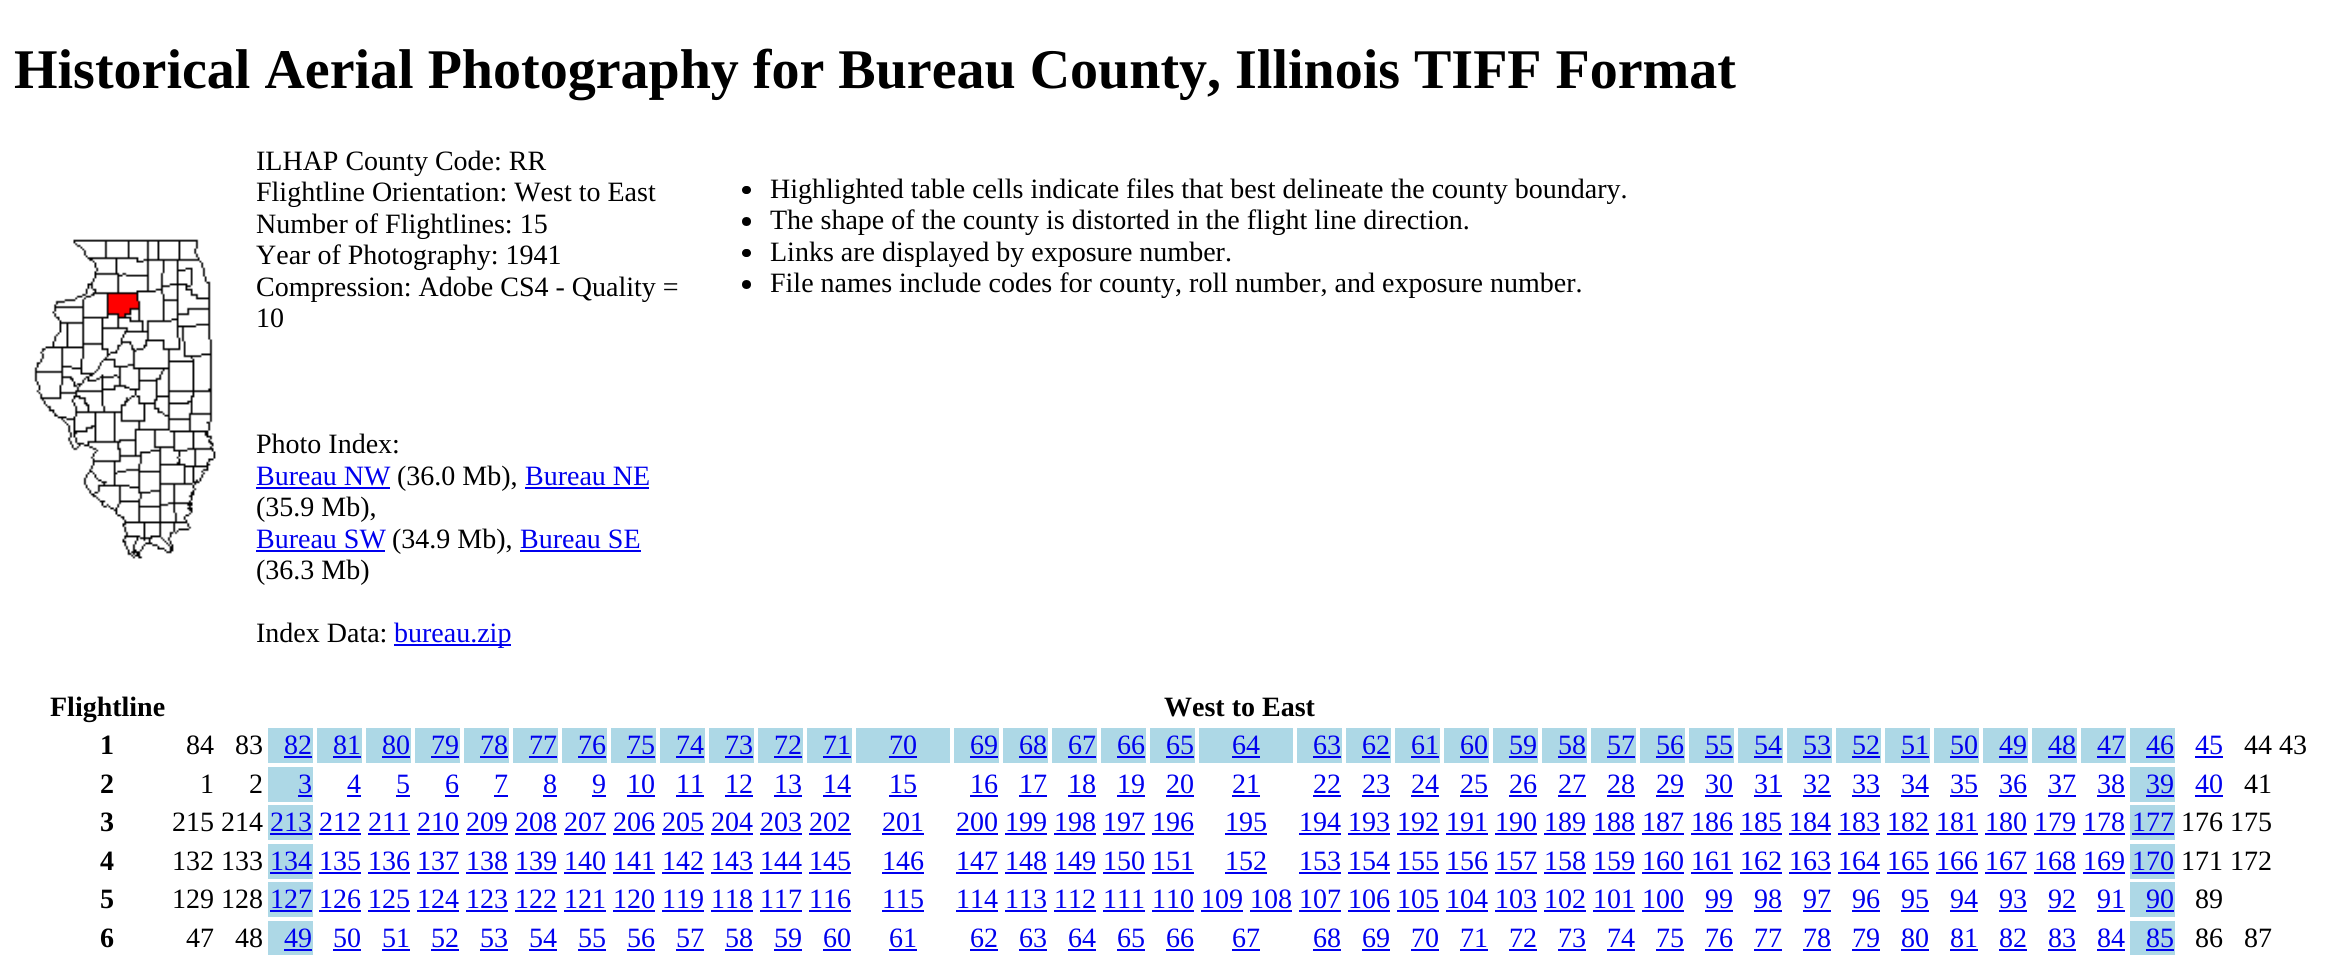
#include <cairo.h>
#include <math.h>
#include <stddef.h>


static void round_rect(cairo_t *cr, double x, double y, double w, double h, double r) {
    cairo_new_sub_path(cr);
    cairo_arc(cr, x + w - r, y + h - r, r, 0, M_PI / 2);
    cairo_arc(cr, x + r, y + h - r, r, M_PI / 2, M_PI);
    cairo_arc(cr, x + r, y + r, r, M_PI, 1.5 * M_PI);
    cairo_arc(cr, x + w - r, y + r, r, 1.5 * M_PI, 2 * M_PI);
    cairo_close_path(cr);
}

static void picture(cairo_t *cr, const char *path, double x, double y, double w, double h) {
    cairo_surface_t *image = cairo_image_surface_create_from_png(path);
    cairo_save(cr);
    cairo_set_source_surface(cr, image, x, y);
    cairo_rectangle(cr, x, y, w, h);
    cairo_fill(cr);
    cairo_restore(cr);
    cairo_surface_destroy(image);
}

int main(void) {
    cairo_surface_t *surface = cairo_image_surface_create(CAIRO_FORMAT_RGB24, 2326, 955);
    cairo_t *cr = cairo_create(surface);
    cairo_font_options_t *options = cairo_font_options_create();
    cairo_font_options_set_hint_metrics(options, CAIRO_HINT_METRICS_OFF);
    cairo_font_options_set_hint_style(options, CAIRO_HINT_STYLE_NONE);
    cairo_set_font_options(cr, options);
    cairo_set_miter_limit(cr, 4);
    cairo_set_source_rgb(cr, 1, 1, 1);
    cairo_paint(cr);
    cairo_select_font_face(cr, "Liberation Serif", CAIRO_FONT_SLANT_NORMAL, CAIRO_FONT_WEIGHT_BOLD);
    cairo_set_font_size(cr, 56);
    cairo_set_source_rgb(cr, 0, 0, 0);
    cairo_move_to(cr, 14, 88);
    cairo_show_text(cr, "Historical Aerial Photography for Bureau County, Illinois TIFF Format");
    picture(cr, "img1.png", 34, 239, 182, 320);
    cairo_select_font_face(cr, "Liberation Serif", CAIRO_FONT_SLANT_NORMAL, CAIRO_FONT_WEIGHT_NORMAL);
    cairo_set_font_size(cr, 28);
    cairo_move_to(cr, 256, 170);
    cairo_show_text(cr, "ILHAP County Code: RR");
    cairo_move_to(cr, 256, 201);
    cairo_show_text(cr, "Flightline Orientation: West to East");
    cairo_move_to(cr, 256, 233);
    cairo_show_text(cr, "Number of Flightlines: 15");
    cairo_move_to(cr, 256, 264);
    cairo_show_text(cr, "Year of Photography: 1941");
    cairo_move_to(cr, 256, 296);
    cairo_show_text(cr, "Compression: Adobe CS4 - Quality =");
    cairo_move_to(cr, 256, 327);
    cairo_show_text(cr, "10");
    cairo_move_to(cr, 256, 453);
    cairo_show_text(cr, "Photo Index:");
    cairo_set_source_rgb(cr, 0, 0, 0.933);
    cairo_move_to(cr, 256, 485);
    cairo_show_text(cr, "Bureau NW");
    cairo_rectangle(cr, 256, 487, 134, 2);
    cairo_fill(cr);
    cairo_set_source_rgb(cr, 0, 0, 0);
    cairo_move_to(cr, 397, 485);
    cairo_show_text(cr, "(36.0 Mb),");
    cairo_set_source_rgb(cr, 0, 0, 0.933);
    cairo_move_to(cr, 525, 485);
    cairo_show_text(cr, "Bureau NE");
    cairo_rectangle(cr, 525, 487, 124, 2);
    cairo_fill(cr);
    cairo_set_source_rgb(cr, 0, 0, 0);
    cairo_move_to(cr, 256, 516);
    cairo_show_text(cr, "(35.9 Mb),");
    cairo_set_source_rgb(cr, 0, 0, 0.933);
    cairo_move_to(cr, 256, 548);
    cairo_show_text(cr, "Bureau SW");
    cairo_rectangle(cr, 256, 550, 129, 2);
    cairo_fill(cr);
    cairo_set_source_rgb(cr, 0, 0, 0);
    cairo_move_to(cr, 392, 548);
    cairo_show_text(cr, "(34.9 Mb),");
    cairo_set_source_rgb(cr, 0, 0, 0.933);
    cairo_move_to(cr, 520, 548);
    cairo_show_text(cr, "Bureau SE");
    cairo_rectangle(cr, 520, 550, 121, 2);
    cairo_fill(cr);
    cairo_set_source_rgb(cr, 0, 0, 0);
    cairo_move_to(cr, 256, 579);
    cairo_show_text(cr, "(36.3 Mb)");
    cairo_move_to(cr, 256, 642);
    cairo_show_text(cr, "Index Data:");
    cairo_set_source_rgb(cr, 0, 0, 0.933);
    cairo_rectangle(cr, 394, 644, 117, 2);
    cairo_fill(cr);
    cairo_move_to(cr, 394, 642);
    cairo_show_text(cr, "bureau.zip");
    cairo_set_source_rgb(cr, 0, 0, 0);
    round_rect(cr, 742, 186, 9, 8, 4);
    cairo_fill(cr);
    cairo_move_to(cr, 770, 198);
    cairo_show_text(cr, "Highlighted table cells indicate files that best delineate the county boundary.");
    cairo_new_path(cr);
    cairo_arc(cr, 746.5, 221.5, 4.5, 0, 2 * M_PI);
    cairo_fill(cr);
    cairo_move_to(cr, 770, 229);
    cairo_show_text(cr, "The shape of the county is distorted in the flight line direction.");
    round_rect(cr, 742, 249, 9, 8, 4);
    cairo_fill(cr);
    cairo_move_to(cr, 770, 261);
    cairo_show_text(cr, "Links are displayed by exposure number.");
    cairo_new_path(cr);
    cairo_arc(cr, 746.5, 284.5, 4.5, 0, 2 * M_PI);
    cairo_fill(cr);
    cairo_move_to(cr, 770, 292);
    cairo_show_text(cr, "File names include codes for county, roll number, and exposure number.");
    cairo_select_font_face(cr, "Liberation Serif", CAIRO_FONT_SLANT_NORMAL, CAIRO_FONT_WEIGHT_BOLD);
    cairo_move_to(cr, 50, 716);
    cairo_show_text(cr, "Flightline");
    cairo_move_to(cr, 1164, 716);
    cairo_show_text(cr, "West to East");
    cairo_move_to(cr, 100, 754);
    cairo_show_text(cr, "1");
    cairo_select_font_face(cr, "Liberation Serif", CAIRO_FONT_SLANT_NORMAL, CAIRO_FONT_WEIGHT_NORMAL);
    cairo_move_to(cr, 186, 754);
    cairo_show_text(cr, "84");
    cairo_move_to(cr, 235, 754);
    cairo_show_text(cr, "83");
    cairo_set_source_rgb(cr, 0.678, 0.847, 0.902);
    cairo_rectangle(cr, 268, 728, 45, 35);
    cairo_fill(cr);
    cairo_set_source_rgb(cr, 0, 0, 0.933);
    cairo_move_to(cr, 284, 754);
    cairo_show_text(cr, "82");
    cairo_rectangle(cr, 284, 756, 28, 2);
    cairo_fill(cr);
    cairo_set_source_rgb(cr, 0.678, 0.847, 0.902);
    cairo_rectangle(cr, 317, 728, 45, 35);
    cairo_fill(cr);
    cairo_set_source_rgb(cr, 0, 0, 0.933);
    cairo_move_to(cr, 333, 754);
    cairo_show_text(cr, "81");
    cairo_rectangle(cr, 333, 756, 28, 2);
    cairo_fill(cr);
    cairo_set_source_rgb(cr, 0.678, 0.847, 0.902);
    cairo_rectangle(cr, 366, 728, 45, 35);
    cairo_fill(cr);
    cairo_set_source_rgb(cr, 0, 0, 0.933);
    cairo_move_to(cr, 382, 754);
    cairo_show_text(cr, "80");
    cairo_rectangle(cr, 382, 756, 28, 2);
    cairo_fill(cr);
    cairo_set_source_rgb(cr, 0.678, 0.847, 0.902);
    cairo_rectangle(cr, 415, 728, 45, 35);
    cairo_fill(cr);
    cairo_set_source_rgb(cr, 0, 0, 0.933);
    cairo_move_to(cr, 431, 754);
    cairo_show_text(cr, "79");
    cairo_rectangle(cr, 431, 756, 28, 2);
    cairo_fill(cr);
    cairo_set_source_rgb(cr, 0.678, 0.847, 0.902);
    cairo_rectangle(cr, 464, 728, 45, 35);
    cairo_fill(cr);
    cairo_set_source_rgb(cr, 0, 0, 0.933);
    cairo_move_to(cr, 480, 754);
    cairo_show_text(cr, "78");
    cairo_rectangle(cr, 480, 756, 28, 2);
    cairo_fill(cr);
    cairo_set_source_rgb(cr, 0.678, 0.847, 0.902);
    cairo_rectangle(cr, 513, 728, 45, 35);
    cairo_fill(cr);
    cairo_set_source_rgb(cr, 0, 0, 0.933);
    cairo_move_to(cr, 529, 754);
    cairo_show_text(cr, "77");
    cairo_rectangle(cr, 529, 756, 28, 2);
    cairo_fill(cr);
    cairo_set_source_rgb(cr, 0.678, 0.847, 0.902);
    cairo_rectangle(cr, 562, 728, 45, 35);
    cairo_fill(cr);
    cairo_set_source_rgb(cr, 0, 0, 0.933);
    cairo_move_to(cr, 578, 754);
    cairo_show_text(cr, "76");
    cairo_rectangle(cr, 578, 756, 28, 2);
    cairo_fill(cr);
    cairo_set_source_rgb(cr, 0.678, 0.847, 0.902);
    cairo_rectangle(cr, 611, 728, 45, 35);
    cairo_fill(cr);
    cairo_set_source_rgb(cr, 0, 0, 0.933);
    cairo_move_to(cr, 627, 754);
    cairo_show_text(cr, "75");
    cairo_rectangle(cr, 627, 756, 28, 2);
    cairo_fill(cr);
    cairo_set_source_rgb(cr, 0.678, 0.847, 0.902);
    cairo_rectangle(cr, 660, 728, 45, 35);
    cairo_fill(cr);
    cairo_set_source_rgb(cr, 0, 0, 0.933);
    cairo_move_to(cr, 676, 754);
    cairo_show_text(cr, "74");
    cairo_rectangle(cr, 676, 756, 28, 2);
    cairo_fill(cr);
    cairo_set_source_rgb(cr, 0.678, 0.847, 0.902);
    cairo_rectangle(cr, 709, 728, 45, 35);
    cairo_fill(cr);
    cairo_set_source_rgb(cr, 0, 0, 0.933);
    cairo_move_to(cr, 725, 754);
    cairo_show_text(cr, "73");
    cairo_rectangle(cr, 725, 756, 28, 2);
    cairo_fill(cr);
    cairo_set_source_rgb(cr, 0.678, 0.847, 0.902);
    cairo_rectangle(cr, 758, 728, 45, 35);
    cairo_fill(cr);
    cairo_set_source_rgb(cr, 0, 0, 0.933);
    cairo_move_to(cr, 774, 754);
    cairo_show_text(cr, "72");
    cairo_rectangle(cr, 774, 756, 28, 2);
    cairo_fill(cr);
    cairo_set_source_rgb(cr, 0.678, 0.847, 0.902);
    cairo_rectangle(cr, 807, 728, 45, 35);
    cairo_fill(cr);
    cairo_set_source_rgb(cr, 0, 0, 0.933);
    cairo_move_to(cr, 823, 754);
    cairo_show_text(cr, "71");
    cairo_rectangle(cr, 823, 756, 28, 2);
    cairo_fill(cr);
    cairo_set_source_rgb(cr, 0.678, 0.847, 0.902);
    cairo_rectangle(cr, 856, 728, 94, 35);
    cairo_fill(cr);
    cairo_set_source_rgb(cr, 0, 0, 0.933);
    cairo_move_to(cr, 889, 754);
    cairo_show_text(cr, "70");
    cairo_rectangle(cr, 889, 756, 28, 2);
    cairo_fill(cr);
    cairo_set_source_rgb(cr, 0.678, 0.847, 0.902);
    cairo_rectangle(cr, 954, 728, 45, 35);
    cairo_fill(cr);
    cairo_set_source_rgb(cr, 0, 0, 0.933);
    cairo_move_to(cr, 970, 754);
    cairo_show_text(cr, "69");
    cairo_rectangle(cr, 970, 756, 28, 2);
    cairo_fill(cr);
    cairo_set_source_rgb(cr, 0.678, 0.847, 0.902);
    cairo_rectangle(cr, 1003, 728, 45, 35);
    cairo_fill(cr);
    cairo_set_source_rgb(cr, 0, 0, 0.933);
    cairo_move_to(cr, 1019, 754);
    cairo_show_text(cr, "68");
    cairo_rectangle(cr, 1019, 756, 28, 2);
    cairo_fill(cr);
    cairo_set_source_rgb(cr, 0.678, 0.847, 0.902);
    cairo_rectangle(cr, 1052, 728, 45, 35);
    cairo_fill(cr);
    cairo_set_source_rgb(cr, 0, 0, 0.933);
    cairo_move_to(cr, 1068, 754);
    cairo_show_text(cr, "67");
    cairo_rectangle(cr, 1068, 756, 28, 2);
    cairo_fill(cr);
    cairo_set_source_rgb(cr, 0.678, 0.847, 0.902);
    cairo_rectangle(cr, 1101, 728, 45, 35);
    cairo_fill(cr);
    cairo_set_source_rgb(cr, 0, 0, 0.933);
    cairo_move_to(cr, 1117, 754);
    cairo_show_text(cr, "66");
    cairo_rectangle(cr, 1117, 756, 28, 2);
    cairo_fill(cr);
    cairo_set_source_rgb(cr, 0.678, 0.847, 0.902);
    cairo_rectangle(cr, 1150, 728, 45, 35);
    cairo_fill(cr);
    cairo_set_source_rgb(cr, 0, 0, 0.933);
    cairo_move_to(cr, 1166, 754);
    cairo_show_text(cr, "65");
    cairo_rectangle(cr, 1166, 756, 28, 2);
    cairo_fill(cr);
    cairo_set_source_rgb(cr, 0.678, 0.847, 0.902);
    cairo_rectangle(cr, 1199, 728, 94, 35);
    cairo_fill(cr);
    cairo_set_source_rgb(cr, 0, 0, 0.933);
    cairo_move_to(cr, 1232, 754);
    cairo_show_text(cr, "64");
    cairo_rectangle(cr, 1232, 756, 28, 2);
    cairo_fill(cr);
    cairo_set_source_rgb(cr, 0.678, 0.847, 0.902);
    cairo_rectangle(cr, 1297, 728, 45, 35);
    cairo_fill(cr);
    cairo_set_source_rgb(cr, 0, 0, 0.933);
    cairo_move_to(cr, 1313, 754);
    cairo_show_text(cr, "63");
    cairo_rectangle(cr, 1313, 756, 28, 2);
    cairo_fill(cr);
    cairo_set_source_rgb(cr, 0.678, 0.847, 0.902);
    cairo_rectangle(cr, 1346, 728, 45, 35);
    cairo_fill(cr);
    cairo_set_source_rgb(cr, 0, 0, 0.933);
    cairo_move_to(cr, 1362, 754);
    cairo_show_text(cr, "62");
    cairo_rectangle(cr, 1362, 756, 28, 2);
    cairo_fill(cr);
    cairo_set_source_rgb(cr, 0.678, 0.847, 0.902);
    cairo_rectangle(cr, 1395, 728, 45, 35);
    cairo_fill(cr);
    cairo_set_source_rgb(cr, 0, 0, 0.933);
    cairo_move_to(cr, 1411, 754);
    cairo_show_text(cr, "61");
    cairo_rectangle(cr, 1411, 756, 28, 2);
    cairo_fill(cr);
    cairo_set_source_rgb(cr, 0.678, 0.847, 0.902);
    cairo_rectangle(cr, 1444, 728, 45, 35);
    cairo_fill(cr);
    cairo_set_source_rgb(cr, 0, 0, 0.933);
    cairo_move_to(cr, 1460, 754);
    cairo_show_text(cr, "60");
    cairo_rectangle(cr, 1460, 756, 28, 2);
    cairo_fill(cr);
    cairo_set_source_rgb(cr, 0.678, 0.847, 0.902);
    cairo_rectangle(cr, 1493, 728, 45, 35);
    cairo_fill(cr);
    cairo_set_source_rgb(cr, 0, 0, 0.933);
    cairo_move_to(cr, 1509, 754);
    cairo_show_text(cr, "59");
    cairo_rectangle(cr, 1509, 756, 28, 2);
    cairo_fill(cr);
    cairo_set_source_rgb(cr, 0.678, 0.847, 0.902);
    cairo_rectangle(cr, 1542, 728, 45, 35);
    cairo_fill(cr);
    cairo_set_source_rgb(cr, 0, 0, 0.933);
    cairo_move_to(cr, 1558, 754);
    cairo_show_text(cr, "58");
    cairo_rectangle(cr, 1558, 756, 28, 2);
    cairo_fill(cr);
    cairo_set_source_rgb(cr, 0.678, 0.847, 0.902);
    cairo_rectangle(cr, 1591, 728, 45, 35);
    cairo_fill(cr);
    cairo_set_source_rgb(cr, 0, 0, 0.933);
    cairo_move_to(cr, 1607, 754);
    cairo_show_text(cr, "57");
    cairo_rectangle(cr, 1607, 756, 28, 2);
    cairo_fill(cr);
    cairo_set_source_rgb(cr, 0.678, 0.847, 0.902);
    cairo_rectangle(cr, 1640, 728, 45, 35);
    cairo_fill(cr);
    cairo_set_source_rgb(cr, 0, 0, 0.933);
    cairo_move_to(cr, 1656, 754);
    cairo_show_text(cr, "56");
    cairo_rectangle(cr, 1656, 756, 28, 2);
    cairo_fill(cr);
    cairo_set_source_rgb(cr, 0.678, 0.847, 0.902);
    cairo_rectangle(cr, 1689, 728, 45, 35);
    cairo_fill(cr);
    cairo_set_source_rgb(cr, 0, 0, 0.933);
    cairo_move_to(cr, 1705, 754);
    cairo_show_text(cr, "55");
    cairo_rectangle(cr, 1705, 756, 28, 2);
    cairo_fill(cr);
    cairo_set_source_rgb(cr, 0.678, 0.847, 0.902);
    cairo_rectangle(cr, 1738, 728, 45, 35);
    cairo_fill(cr);
    cairo_set_source_rgb(cr, 0, 0, 0.933);
    cairo_move_to(cr, 1754, 754);
    cairo_show_text(cr, "54");
    cairo_rectangle(cr, 1754, 756, 28, 2);
    cairo_fill(cr);
    cairo_set_source_rgb(cr, 0.678, 0.847, 0.902);
    cairo_rectangle(cr, 1787, 728, 45, 35);
    cairo_fill(cr);
    cairo_set_source_rgb(cr, 0, 0, 0.933);
    cairo_move_to(cr, 1803, 754);
    cairo_show_text(cr, "53");
    cairo_rectangle(cr, 1803, 756, 28, 2);
    cairo_fill(cr);
    cairo_set_source_rgb(cr, 0.678, 0.847, 0.902);
    cairo_rectangle(cr, 1836, 728, 45, 35);
    cairo_fill(cr);
    cairo_set_source_rgb(cr, 0, 0, 0.933);
    cairo_move_to(cr, 1852, 754);
    cairo_show_text(cr, "52");
    cairo_rectangle(cr, 1852, 756, 28, 2);
    cairo_fill(cr);
    cairo_set_source_rgb(cr, 0.678, 0.847, 0.902);
    cairo_rectangle(cr, 1885, 728, 45, 35);
    cairo_fill(cr);
    cairo_set_source_rgb(cr, 0, 0, 0.933);
    cairo_move_to(cr, 1901, 754);
    cairo_show_text(cr, "51");
    cairo_rectangle(cr, 1901, 756, 28, 2);
    cairo_fill(cr);
    cairo_set_source_rgb(cr, 0.678, 0.847, 0.902);
    cairo_rectangle(cr, 1934, 728, 45, 35);
    cairo_fill(cr);
    cairo_set_source_rgb(cr, 0, 0, 0.933);
    cairo_move_to(cr, 1950, 754);
    cairo_show_text(cr, "50");
    cairo_rectangle(cr, 1950, 756, 28, 2);
    cairo_fill(cr);
    cairo_set_source_rgb(cr, 0.678, 0.847, 0.902);
    cairo_rectangle(cr, 1983, 728, 45, 35);
    cairo_fill(cr);
    cairo_set_source_rgb(cr, 0, 0, 0.933);
    cairo_move_to(cr, 1999, 754);
    cairo_show_text(cr, "49");
    cairo_rectangle(cr, 1999, 756, 28, 2);
    cairo_fill(cr);
    cairo_set_source_rgb(cr, 0.678, 0.847, 0.902);
    cairo_rectangle(cr, 2032, 728, 45, 35);
    cairo_fill(cr);
    cairo_set_source_rgb(cr, 0, 0, 0.933);
    cairo_move_to(cr, 2048, 754);
    cairo_show_text(cr, "48");
    cairo_rectangle(cr, 2048, 756, 28, 2);
    cairo_fill(cr);
    cairo_set_source_rgb(cr, 0.678, 0.847, 0.902);
    cairo_rectangle(cr, 2081, 728, 45, 35);
    cairo_fill(cr);
    cairo_set_source_rgb(cr, 0, 0, 0.933);
    cairo_move_to(cr, 2097, 754);
    cairo_show_text(cr, "47");
    cairo_rectangle(cr, 2097, 756, 28, 2);
    cairo_fill(cr);
    cairo_set_source_rgb(cr, 0.678, 0.847, 0.902);
    cairo_rectangle(cr, 2130, 728, 45, 35);
    cairo_fill(cr);
    cairo_set_source_rgb(cr, 0, 0, 0.933);
    cairo_move_to(cr, 2146, 754);
    cairo_show_text(cr, "46");
    cairo_rectangle(cr, 2146, 756, 28, 2);
    cairo_fill(cr);
    cairo_move_to(cr, 2195, 754);
    cairo_show_text(cr, "45");
    cairo_rectangle(cr, 2195, 756, 28, 2);
    cairo_fill(cr);
    cairo_set_source_rgb(cr, 0, 0, 0);
    cairo_move_to(cr, 2244, 754);
    cairo_show_text(cr, "44 43");
    cairo_select_font_face(cr, "Liberation Serif", CAIRO_FONT_SLANT_NORMAL, CAIRO_FONT_WEIGHT_BOLD);
    cairo_move_to(cr, 100, 793);
    cairo_show_text(cr, "2");
    cairo_select_font_face(cr, "Liberation Serif", CAIRO_FONT_SLANT_NORMAL, CAIRO_FONT_WEIGHT_NORMAL);
    cairo_move_to(cr, 200, 793);
    cairo_show_text(cr, "1");
    cairo_move_to(cr, 249, 793);
    cairo_show_text(cr, "2");
    cairo_set_source_rgb(cr, 0.678, 0.847, 0.902);
    cairo_rectangle(cr, 268, 767, 45, 35);
    cairo_fill(cr);
    cairo_set_source_rgb(cr, 0, 0, 0.933);
    cairo_move_to(cr, 298, 793);
    cairo_show_text(cr, "3");
    cairo_rectangle(cr, 298, 795, 14, 2);
    cairo_fill(cr);
    cairo_move_to(cr, 347, 793);
    cairo_show_text(cr, "4");
    cairo_rectangle(cr, 347, 795, 14, 2);
    cairo_fill(cr);
    cairo_move_to(cr, 396, 793);
    cairo_show_text(cr, "5");
    cairo_rectangle(cr, 396, 795, 14, 2);
    cairo_fill(cr);
    cairo_move_to(cr, 445, 793);
    cairo_show_text(cr, "6");
    cairo_rectangle(cr, 445, 795, 14, 2);
    cairo_fill(cr);
    cairo_move_to(cr, 494, 793);
    cairo_show_text(cr, "7");
    cairo_rectangle(cr, 494, 795, 14, 2);
    cairo_fill(cr);
    cairo_move_to(cr, 543, 793);
    cairo_show_text(cr, "8");
    cairo_rectangle(cr, 543, 795, 14, 2);
    cairo_fill(cr);
    cairo_move_to(cr, 592, 793);
    cairo_show_text(cr, "9");
    cairo_rectangle(cr, 592, 795, 14, 2);
    cairo_fill(cr);
    cairo_move_to(cr, 627, 793);
    cairo_show_text(cr, "10");
    cairo_rectangle(cr, 627, 795, 28, 2);
    cairo_fill(cr);
    cairo_move_to(cr, 676, 793);
    cairo_show_text(cr, "11");
    cairo_rectangle(cr, 676, 795, 28, 2);
    cairo_fill(cr);
    cairo_move_to(cr, 725, 793);
    cairo_show_text(cr, "12");
    cairo_rectangle(cr, 725, 795, 28, 2);
    cairo_fill(cr);
    cairo_move_to(cr, 774, 793);
    cairo_show_text(cr, "13");
    cairo_rectangle(cr, 774, 795, 28, 2);
    cairo_fill(cr);
    cairo_move_to(cr, 823, 793);
    cairo_show_text(cr, "14");
    cairo_rectangle(cr, 823, 795, 28, 2);
    cairo_fill(cr);
    cairo_move_to(cr, 889, 793);
    cairo_show_text(cr, "15");
    cairo_rectangle(cr, 889, 795, 28, 2);
    cairo_fill(cr);
    cairo_move_to(cr, 970, 793);
    cairo_show_text(cr, "16");
    cairo_rectangle(cr, 970, 795, 28, 2);
    cairo_fill(cr);
    cairo_move_to(cr, 1019, 793);
    cairo_show_text(cr, "17");
    cairo_rectangle(cr, 1019, 795, 28, 2);
    cairo_fill(cr);
    cairo_move_to(cr, 1068, 793);
    cairo_show_text(cr, "18");
    cairo_rectangle(cr, 1068, 795, 28, 2);
    cairo_fill(cr);
    cairo_move_to(cr, 1117, 793);
    cairo_show_text(cr, "19");
    cairo_rectangle(cr, 1117, 795, 28, 2);
    cairo_fill(cr);
    cairo_move_to(cr, 1166, 793);
    cairo_show_text(cr, "20");
    cairo_rectangle(cr, 1166, 795, 28, 2);
    cairo_fill(cr);
    cairo_move_to(cr, 1232, 793);
    cairo_show_text(cr, "21");
    cairo_rectangle(cr, 1232, 795, 28, 2);
    cairo_fill(cr);
    cairo_move_to(cr, 1313, 793);
    cairo_show_text(cr, "22");
    cairo_rectangle(cr, 1313, 795, 28, 2);
    cairo_fill(cr);
    cairo_move_to(cr, 1362, 793);
    cairo_show_text(cr, "23");
    cairo_rectangle(cr, 1362, 795, 28, 2);
    cairo_fill(cr);
    cairo_move_to(cr, 1411, 793);
    cairo_show_text(cr, "24");
    cairo_rectangle(cr, 1411, 795, 28, 2);
    cairo_fill(cr);
    cairo_move_to(cr, 1460, 793);
    cairo_show_text(cr, "25");
    cairo_rectangle(cr, 1460, 795, 28, 2);
    cairo_fill(cr);
    cairo_move_to(cr, 1509, 793);
    cairo_show_text(cr, "26");
    cairo_rectangle(cr, 1509, 795, 28, 2);
    cairo_fill(cr);
    cairo_move_to(cr, 1558, 793);
    cairo_show_text(cr, "27");
    cairo_rectangle(cr, 1558, 795, 28, 2);
    cairo_fill(cr);
    cairo_move_to(cr, 1607, 793);
    cairo_show_text(cr, "28");
    cairo_rectangle(cr, 1607, 795, 28, 2);
    cairo_fill(cr);
    cairo_move_to(cr, 1656, 793);
    cairo_show_text(cr, "29");
    cairo_rectangle(cr, 1656, 795, 28, 2);
    cairo_fill(cr);
    cairo_move_to(cr, 1705, 793);
    cairo_show_text(cr, "30");
    cairo_rectangle(cr, 1705, 795, 28, 2);
    cairo_fill(cr);
    cairo_move_to(cr, 1754, 793);
    cairo_show_text(cr, "31");
    cairo_rectangle(cr, 1754, 795, 28, 2);
    cairo_fill(cr);
    cairo_move_to(cr, 1803, 793);
    cairo_show_text(cr, "32");
    cairo_rectangle(cr, 1803, 795, 28, 2);
    cairo_fill(cr);
    cairo_move_to(cr, 1852, 793);
    cairo_show_text(cr, "33");
    cairo_rectangle(cr, 1852, 795, 28, 2);
    cairo_fill(cr);
    cairo_move_to(cr, 1901, 793);
    cairo_show_text(cr, "34");
    cairo_rectangle(cr, 1901, 795, 28, 2);
    cairo_fill(cr);
    cairo_move_to(cr, 1950, 793);
    cairo_show_text(cr, "35");
    cairo_rectangle(cr, 1950, 795, 28, 2);
    cairo_fill(cr);
    cairo_move_to(cr, 1999, 793);
    cairo_show_text(cr, "36");
    cairo_rectangle(cr, 1999, 795, 28, 2);
    cairo_fill(cr);
    cairo_move_to(cr, 2048, 793);
    cairo_show_text(cr, "37");
    cairo_rectangle(cr, 2048, 795, 28, 2);
    cairo_fill(cr);
    cairo_move_to(cr, 2097, 793);
    cairo_show_text(cr, "38");
    cairo_rectangle(cr, 2097, 795, 28, 2);
    cairo_fill(cr);
    cairo_set_source_rgb(cr, 0.678, 0.847, 0.902);
    cairo_rectangle(cr, 2130, 767, 45, 35);
    cairo_fill(cr);
    cairo_set_source_rgb(cr, 0, 0, 0.933);
    cairo_move_to(cr, 2146, 793);
    cairo_show_text(cr, "39");
    cairo_rectangle(cr, 2146, 795, 28, 2);
    cairo_fill(cr);
    cairo_move_to(cr, 2195, 793);
    cairo_show_text(cr, "40");
    cairo_rectangle(cr, 2195, 795, 28, 2);
    cairo_fill(cr);
    cairo_set_source_rgb(cr, 0, 0, 0);
    cairo_move_to(cr, 2244, 793);
    cairo_show_text(cr, "41");
    cairo_select_font_face(cr, "Liberation Serif", CAIRO_FONT_SLANT_NORMAL, CAIRO_FONT_WEIGHT_BOLD);
    cairo_move_to(cr, 100, 831);
    cairo_show_text(cr, "3");
    cairo_select_font_face(cr, "Liberation Serif", CAIRO_FONT_SLANT_NORMAL, CAIRO_FONT_WEIGHT_NORMAL);
    cairo_move_to(cr, 172, 831);
    cairo_show_text(cr, "215 214");
    cairo_set_source_rgb(cr, 0.678, 0.847, 0.902);
    cairo_rectangle(cr, 268, 805, 45, 35);
    cairo_fill(cr);
    cairo_set_source_rgb(cr, 0, 0, 0.933);
    cairo_move_to(cr, 270, 831);
    cairo_show_text(cr, "213 212 211 210 209 208 207 206 205 204 203 202");
    cairo_rectangle(cr, 270, 833, 42, 2);
    cairo_fill(cr);
    cairo_move_to(cr, 882, 831);
    cairo_show_text(cr, "201");
    cairo_rectangle(cr, 882, 833, 42, 2);
    cairo_fill(cr);
    cairo_move_to(cr, 956, 831);
    cairo_show_text(cr, "200 199 198 197 196");
    cairo_rectangle(cr, 956, 833, 42, 2);
    cairo_fill(cr);
    cairo_move_to(cr, 1225, 831);
    cairo_show_text(cr, "195");
    cairo_rectangle(cr, 1225, 833, 42, 2);
    cairo_fill(cr);
    cairo_set_source_rgb(cr, 0.678, 0.847, 0.902);
    cairo_rectangle(cr, 2130, 805, 45, 35);
    cairo_fill(cr);
    cairo_set_source_rgb(cr, 0, 0, 0.933);
    cairo_rectangle(cr, 2132, 833, 42, 2);
    cairo_fill(cr);
    cairo_move_to(cr, 1299, 831);
    cairo_show_text(cr, "194 193 192 191 190 189 188 187 186 185 184 183 182 181 180 179 178 177");
    cairo_rectangle(cr, 1299, 833, 42, 2);
    cairo_fill(cr);
    cairo_set_source_rgb(cr, 0, 0, 0);
    cairo_move_to(cr, 2181, 831);
    cairo_show_text(cr, "176 175");
    cairo_set_source_rgb(cr, 0, 0, 0.933);
    cairo_rectangle(cr, 319, 833, 42, 2);
    cairo_fill(cr);
    cairo_rectangle(cr, 368, 833, 42, 2);
    cairo_fill(cr);
    cairo_rectangle(cr, 417, 833, 42, 2);
    cairo_fill(cr);
    cairo_rectangle(cr, 466, 833, 42, 2);
    cairo_fill(cr);
    cairo_rectangle(cr, 515, 833, 42, 2);
    cairo_fill(cr);
    cairo_rectangle(cr, 564, 833, 42, 2);
    cairo_fill(cr);
    cairo_rectangle(cr, 613, 833, 42, 2);
    cairo_fill(cr);
    cairo_rectangle(cr, 662, 833, 42, 2);
    cairo_fill(cr);
    cairo_rectangle(cr, 711, 833, 42, 2);
    cairo_fill(cr);
    cairo_rectangle(cr, 760, 833, 42, 2);
    cairo_fill(cr);
    cairo_rectangle(cr, 809, 833, 42, 2);
    cairo_fill(cr);
    cairo_rectangle(cr, 1005, 833, 42, 2);
    cairo_fill(cr);
    cairo_rectangle(cr, 1054, 833, 42, 2);
    cairo_fill(cr);
    cairo_rectangle(cr, 1103, 833, 42, 2);
    cairo_fill(cr);
    cairo_rectangle(cr, 1152, 833, 42, 2);
    cairo_fill(cr);
    cairo_rectangle(cr, 1348, 833, 42, 2);
    cairo_fill(cr);
    cairo_rectangle(cr, 1397, 833, 42, 2);
    cairo_fill(cr);
    cairo_rectangle(cr, 1446, 833, 42, 2);
    cairo_fill(cr);
    cairo_rectangle(cr, 1495, 833, 42, 2);
    cairo_fill(cr);
    cairo_rectangle(cr, 1544, 833, 42, 2);
    cairo_fill(cr);
    cairo_rectangle(cr, 1593, 833, 42, 2);
    cairo_fill(cr);
    cairo_rectangle(cr, 1642, 833, 42, 2);
    cairo_fill(cr);
    cairo_rectangle(cr, 1691, 833, 42, 2);
    cairo_fill(cr);
    cairo_rectangle(cr, 1740, 833, 42, 2);
    cairo_fill(cr);
    cairo_rectangle(cr, 1789, 833, 42, 2);
    cairo_fill(cr);
    cairo_rectangle(cr, 1838, 833, 42, 2);
    cairo_fill(cr);
    cairo_rectangle(cr, 1887, 833, 42, 2);
    cairo_fill(cr);
    cairo_rectangle(cr, 1936, 833, 42, 2);
    cairo_fill(cr);
    cairo_rectangle(cr, 1985, 833, 42, 2);
    cairo_fill(cr);
    cairo_rectangle(cr, 2034, 833, 42, 2);
    cairo_fill(cr);
    cairo_rectangle(cr, 2083, 833, 42, 2);
    cairo_fill(cr);
    cairo_select_font_face(cr, "Liberation Serif", CAIRO_FONT_SLANT_NORMAL, CAIRO_FONT_WEIGHT_BOLD);
    cairo_set_source_rgb(cr, 0, 0, 0);
    cairo_move_to(cr, 100, 870);
    cairo_show_text(cr, "4");
    cairo_select_font_face(cr, "Liberation Serif", CAIRO_FONT_SLANT_NORMAL, CAIRO_FONT_WEIGHT_NORMAL);
    cairo_move_to(cr, 172, 870);
    cairo_show_text(cr, "132 133");
    cairo_set_source_rgb(cr, 0.678, 0.847, 0.902);
    cairo_rectangle(cr, 268, 844, 45, 35);
    cairo_fill(cr);
    cairo_set_source_rgb(cr, 0, 0, 0.933);
    cairo_move_to(cr, 270, 870);
    cairo_show_text(cr, "134 135 136 137 138 139 140 141 142 143 144 145");
    cairo_rectangle(cr, 270, 872, 42, 2);
    cairo_fill(cr);
    cairo_move_to(cr, 882, 870);
    cairo_show_text(cr, "146");
    cairo_rectangle(cr, 882, 872, 42, 2);
    cairo_fill(cr);
    cairo_move_to(cr, 956, 870);
    cairo_show_text(cr, "147 148 149 150 151");
    cairo_rectangle(cr, 956, 872, 42, 2);
    cairo_fill(cr);
    cairo_move_to(cr, 1225, 870);
    cairo_show_text(cr, "152");
    cairo_rectangle(cr, 1225, 872, 42, 2);
    cairo_fill(cr);
    cairo_set_source_rgb(cr, 0.678, 0.847, 0.902);
    cairo_rectangle(cr, 2130, 844, 45, 35);
    cairo_fill(cr);
    cairo_set_source_rgb(cr, 0, 0, 0.933);
    cairo_rectangle(cr, 2132, 872, 42, 2);
    cairo_fill(cr);
    cairo_move_to(cr, 1299, 870);
    cairo_show_text(cr, "153 154 155 156 157 158 159 160 161 162 163 164 165 166 167 168 169 170");
    cairo_rectangle(cr, 1299, 872, 42, 2);
    cairo_fill(cr);
    cairo_set_source_rgb(cr, 0, 0, 0);
    cairo_move_to(cr, 2181, 870);
    cairo_show_text(cr, "171 172");
    cairo_set_source_rgb(cr, 0, 0, 0.933);
    cairo_rectangle(cr, 319, 872, 42, 2);
    cairo_fill(cr);
    cairo_rectangle(cr, 368, 872, 42, 2);
    cairo_fill(cr);
    cairo_rectangle(cr, 417, 872, 42, 2);
    cairo_fill(cr);
    cairo_rectangle(cr, 466, 872, 42, 2);
    cairo_fill(cr);
    cairo_rectangle(cr, 515, 872, 42, 2);
    cairo_fill(cr);
    cairo_rectangle(cr, 564, 872, 42, 2);
    cairo_fill(cr);
    cairo_rectangle(cr, 613, 872, 42, 2);
    cairo_fill(cr);
    cairo_rectangle(cr, 662, 872, 42, 2);
    cairo_fill(cr);
    cairo_rectangle(cr, 711, 872, 42, 2);
    cairo_fill(cr);
    cairo_rectangle(cr, 760, 872, 42, 2);
    cairo_fill(cr);
    cairo_rectangle(cr, 809, 872, 42, 2);
    cairo_fill(cr);
    cairo_rectangle(cr, 1005, 872, 42, 2);
    cairo_fill(cr);
    cairo_rectangle(cr, 1054, 872, 42, 2);
    cairo_fill(cr);
    cairo_rectangle(cr, 1103, 872, 42, 2);
    cairo_fill(cr);
    cairo_rectangle(cr, 1152, 872, 42, 2);
    cairo_fill(cr);
    cairo_rectangle(cr, 1348, 872, 42, 2);
    cairo_fill(cr);
    cairo_rectangle(cr, 1397, 872, 42, 2);
    cairo_fill(cr);
    cairo_rectangle(cr, 1446, 872, 42, 2);
    cairo_fill(cr);
    cairo_rectangle(cr, 1495, 872, 42, 2);
    cairo_fill(cr);
    cairo_rectangle(cr, 1544, 872, 42, 2);
    cairo_fill(cr);
    cairo_rectangle(cr, 1593, 872, 42, 2);
    cairo_fill(cr);
    cairo_rectangle(cr, 1642, 872, 42, 2);
    cairo_fill(cr);
    cairo_rectangle(cr, 1691, 872, 42, 2);
    cairo_fill(cr);
    cairo_rectangle(cr, 1740, 872, 42, 2);
    cairo_fill(cr);
    cairo_rectangle(cr, 1789, 872, 42, 2);
    cairo_fill(cr);
    cairo_rectangle(cr, 1838, 872, 42, 2);
    cairo_fill(cr);
    cairo_rectangle(cr, 1887, 872, 42, 2);
    cairo_fill(cr);
    cairo_rectangle(cr, 1936, 872, 42, 2);
    cairo_fill(cr);
    cairo_rectangle(cr, 1985, 872, 42, 2);
    cairo_fill(cr);
    cairo_rectangle(cr, 2034, 872, 42, 2);
    cairo_fill(cr);
    cairo_rectangle(cr, 2083, 872, 42, 2);
    cairo_fill(cr);
    cairo_select_font_face(cr, "Liberation Serif", CAIRO_FONT_SLANT_NORMAL, CAIRO_FONT_WEIGHT_BOLD);
    cairo_set_source_rgb(cr, 0, 0, 0);
    cairo_move_to(cr, 100, 908);
    cairo_show_text(cr, "5");
    cairo_select_font_face(cr, "Liberation Serif", CAIRO_FONT_SLANT_NORMAL, CAIRO_FONT_WEIGHT_NORMAL);
    cairo_move_to(cr, 172, 908);
    cairo_show_text(cr, "129 128");
    cairo_set_source_rgb(cr, 0.678, 0.847, 0.902);
    cairo_rectangle(cr, 268, 882, 45, 35);
    cairo_fill(cr);
    cairo_set_source_rgb(cr, 0, 0, 0.933);
    cairo_move_to(cr, 270, 908);
    cairo_show_text(cr, "127 126 125 124 123 122 121 120 119 118 117 116");
    cairo_rectangle(cr, 270, 910, 42, 2);
    cairo_fill(cr);
    cairo_move_to(cr, 882, 908);
    cairo_show_text(cr, "115");
    cairo_rectangle(cr, 882, 910, 42, 2);
    cairo_fill(cr);
    cairo_move_to(cr, 956, 908);
    cairo_show_text(cr, "114 113 112 111 110 109 108 107 106 105 104 103 102 101 100");
    cairo_rectangle(cr, 956, 910, 42, 2);
    cairo_fill(cr);
    cairo_move_to(cr, 1705, 908);
    cairo_show_text(cr, "99");
    cairo_rectangle(cr, 1705, 910, 28, 2);
    cairo_fill(cr);
    cairo_move_to(cr, 1754, 908);
    cairo_show_text(cr, "98");
    cairo_rectangle(cr, 1754, 910, 28, 2);
    cairo_fill(cr);
    cairo_move_to(cr, 1803, 908);
    cairo_show_text(cr, "97");
    cairo_rectangle(cr, 1803, 910, 28, 2);
    cairo_fill(cr);
    cairo_move_to(cr, 1852, 908);
    cairo_show_text(cr, "96");
    cairo_rectangle(cr, 1852, 910, 28, 2);
    cairo_fill(cr);
    cairo_move_to(cr, 1901, 908);
    cairo_show_text(cr, "95");
    cairo_rectangle(cr, 1901, 910, 28, 2);
    cairo_fill(cr);
    cairo_move_to(cr, 1950, 908);
    cairo_show_text(cr, "94");
    cairo_rectangle(cr, 1950, 910, 28, 2);
    cairo_fill(cr);
    cairo_move_to(cr, 1999, 908);
    cairo_show_text(cr, "93");
    cairo_rectangle(cr, 1999, 910, 28, 2);
    cairo_fill(cr);
    cairo_move_to(cr, 2048, 908);
    cairo_show_text(cr, "92");
    cairo_rectangle(cr, 2048, 910, 28, 2);
    cairo_fill(cr);
    cairo_move_to(cr, 2097, 908);
    cairo_show_text(cr, "91");
    cairo_rectangle(cr, 2097, 910, 28, 2);
    cairo_fill(cr);
    cairo_set_source_rgb(cr, 0.678, 0.847, 0.902);
    cairo_rectangle(cr, 2130, 882, 45, 35);
    cairo_fill(cr);
    cairo_set_source_rgb(cr, 0, 0, 0.933);
    cairo_move_to(cr, 2146, 908);
    cairo_show_text(cr, "90");
    cairo_rectangle(cr, 2146, 910, 28, 2);
    cairo_fill(cr);
    cairo_set_source_rgb(cr, 0, 0, 0);
    cairo_move_to(cr, 2195, 908);
    cairo_show_text(cr, "89");
    cairo_set_source_rgb(cr, 0, 0, 0.933);
    cairo_rectangle(cr, 319, 910, 42, 2);
    cairo_fill(cr);
    cairo_rectangle(cr, 368, 910, 42, 2);
    cairo_fill(cr);
    cairo_rectangle(cr, 417, 910, 42, 2);
    cairo_fill(cr);
    cairo_rectangle(cr, 466, 910, 42, 2);
    cairo_fill(cr);
    cairo_rectangle(cr, 515, 910, 42, 2);
    cairo_fill(cr);
    cairo_rectangle(cr, 564, 910, 42, 2);
    cairo_fill(cr);
    cairo_rectangle(cr, 613, 910, 42, 2);
    cairo_fill(cr);
    cairo_rectangle(cr, 662, 910, 42, 2);
    cairo_fill(cr);
    cairo_rectangle(cr, 711, 910, 42, 2);
    cairo_fill(cr);
    cairo_rectangle(cr, 760, 910, 42, 2);
    cairo_fill(cr);
    cairo_rectangle(cr, 809, 910, 42, 2);
    cairo_fill(cr);
    cairo_rectangle(cr, 1005, 910, 42, 2);
    cairo_fill(cr);
    cairo_rectangle(cr, 1054, 910, 42, 2);
    cairo_fill(cr);
    cairo_rectangle(cr, 1103, 910, 42, 2);
    cairo_fill(cr);
    cairo_rectangle(cr, 1152, 910, 42, 2);
    cairo_fill(cr);
    cairo_rectangle(cr, 1201, 910, 42, 2);
    cairo_fill(cr);
    cairo_rectangle(cr, 1250, 910, 42, 2);
    cairo_fill(cr);
    cairo_rectangle(cr, 1299, 910, 42, 2);
    cairo_fill(cr);
    cairo_rectangle(cr, 1348, 910, 42, 2);
    cairo_fill(cr);
    cairo_rectangle(cr, 1397, 910, 42, 2);
    cairo_fill(cr);
    cairo_rectangle(cr, 1446, 910, 42, 2);
    cairo_fill(cr);
    cairo_rectangle(cr, 1495, 910, 42, 2);
    cairo_fill(cr);
    cairo_rectangle(cr, 1544, 910, 42, 2);
    cairo_fill(cr);
    cairo_rectangle(cr, 1593, 910, 42, 2);
    cairo_fill(cr);
    cairo_rectangle(cr, 1642, 910, 42, 2);
    cairo_fill(cr);
    cairo_select_font_face(cr, "Liberation Serif", CAIRO_FONT_SLANT_NORMAL, CAIRO_FONT_WEIGHT_BOLD);
    cairo_set_source_rgb(cr, 0, 0, 0);
    cairo_move_to(cr, 100, 947);
    cairo_show_text(cr, "6");
    cairo_select_font_face(cr, "Liberation Serif", CAIRO_FONT_SLANT_NORMAL, CAIRO_FONT_WEIGHT_NORMAL);
    cairo_move_to(cr, 186, 947);
    cairo_show_text(cr, "47");
    cairo_move_to(cr, 235, 947);
    cairo_show_text(cr, "48");
    cairo_set_source_rgb(cr, 0.678, 0.847, 0.902);
    cairo_rectangle(cr, 268, 921, 45, 34);
    cairo_fill(cr);
    cairo_set_source_rgb(cr, 0, 0, 0.933);
    cairo_move_to(cr, 284, 947);
    cairo_show_text(cr, "49");
    cairo_rectangle(cr, 284, 949, 28, 2);
    cairo_fill(cr);
    cairo_move_to(cr, 333, 947);
    cairo_show_text(cr, "50");
    cairo_rectangle(cr, 333, 949, 28, 2);
    cairo_fill(cr);
    cairo_move_to(cr, 382, 947);
    cairo_show_text(cr, "51");
    cairo_rectangle(cr, 382, 949, 28, 2);
    cairo_fill(cr);
    cairo_move_to(cr, 431, 947);
    cairo_show_text(cr, "52");
    cairo_rectangle(cr, 431, 949, 28, 2);
    cairo_fill(cr);
    cairo_move_to(cr, 480, 947);
    cairo_show_text(cr, "53");
    cairo_rectangle(cr, 480, 949, 28, 2);
    cairo_fill(cr);
    cairo_move_to(cr, 529, 947);
    cairo_show_text(cr, "54");
    cairo_rectangle(cr, 529, 949, 28, 2);
    cairo_fill(cr);
    cairo_move_to(cr, 578, 947);
    cairo_show_text(cr, "55");
    cairo_rectangle(cr, 578, 949, 28, 2);
    cairo_fill(cr);
    cairo_move_to(cr, 627, 947);
    cairo_show_text(cr, "56");
    cairo_rectangle(cr, 627, 949, 28, 2);
    cairo_fill(cr);
    cairo_move_to(cr, 676, 947);
    cairo_show_text(cr, "57");
    cairo_rectangle(cr, 676, 949, 28, 2);
    cairo_fill(cr);
    cairo_move_to(cr, 725, 947);
    cairo_show_text(cr, "58");
    cairo_rectangle(cr, 725, 949, 28, 2);
    cairo_fill(cr);
    cairo_move_to(cr, 774, 947);
    cairo_show_text(cr, "59");
    cairo_rectangle(cr, 774, 949, 28, 2);
    cairo_fill(cr);
    cairo_move_to(cr, 823, 947);
    cairo_show_text(cr, "60");
    cairo_rectangle(cr, 823, 949, 28, 2);
    cairo_fill(cr);
    cairo_move_to(cr, 889, 947);
    cairo_show_text(cr, "61");
    cairo_rectangle(cr, 889, 949, 28, 2);
    cairo_fill(cr);
    cairo_move_to(cr, 970, 947);
    cairo_show_text(cr, "62");
    cairo_rectangle(cr, 970, 949, 28, 2);
    cairo_fill(cr);
    cairo_move_to(cr, 1019, 947);
    cairo_show_text(cr, "63");
    cairo_rectangle(cr, 1019, 949, 28, 2);
    cairo_fill(cr);
    cairo_move_to(cr, 1068, 947);
    cairo_show_text(cr, "64");
    cairo_rectangle(cr, 1068, 949, 28, 2);
    cairo_fill(cr);
    cairo_move_to(cr, 1117, 947);
    cairo_show_text(cr, "65");
    cairo_rectangle(cr, 1117, 949, 28, 2);
    cairo_fill(cr);
    cairo_move_to(cr, 1166, 947);
    cairo_show_text(cr, "66");
    cairo_rectangle(cr, 1166, 949, 28, 2);
    cairo_fill(cr);
    cairo_move_to(cr, 1232, 947);
    cairo_show_text(cr, "67");
    cairo_rectangle(cr, 1232, 949, 28, 2);
    cairo_fill(cr);
    cairo_move_to(cr, 1313, 947);
    cairo_show_text(cr, "68");
    cairo_rectangle(cr, 1313, 949, 28, 2);
    cairo_fill(cr);
    cairo_move_to(cr, 1362, 947);
    cairo_show_text(cr, "69");
    cairo_rectangle(cr, 1362, 949, 28, 2);
    cairo_fill(cr);
    cairo_move_to(cr, 1411, 947);
    cairo_show_text(cr, "70");
    cairo_rectangle(cr, 1411, 949, 28, 2);
    cairo_fill(cr);
    cairo_move_to(cr, 1460, 947);
    cairo_show_text(cr, "71");
    cairo_rectangle(cr, 1460, 949, 28, 2);
    cairo_fill(cr);
    cairo_move_to(cr, 1509, 947);
    cairo_show_text(cr, "72");
    cairo_rectangle(cr, 1509, 949, 28, 2);
    cairo_fill(cr);
    cairo_move_to(cr, 1558, 947);
    cairo_show_text(cr, "73");
    cairo_rectangle(cr, 1558, 949, 28, 2);
    cairo_fill(cr);
    cairo_move_to(cr, 1607, 947);
    cairo_show_text(cr, "74");
    cairo_rectangle(cr, 1607, 949, 28, 2);
    cairo_fill(cr);
    cairo_move_to(cr, 1656, 947);
    cairo_show_text(cr, "75");
    cairo_rectangle(cr, 1656, 949, 28, 2);
    cairo_fill(cr);
    cairo_move_to(cr, 1705, 947);
    cairo_show_text(cr, "76");
    cairo_rectangle(cr, 1705, 949, 28, 2);
    cairo_fill(cr);
    cairo_move_to(cr, 1754, 947);
    cairo_show_text(cr, "77");
    cairo_rectangle(cr, 1754, 949, 28, 2);
    cairo_fill(cr);
    cairo_move_to(cr, 1803, 947);
    cairo_show_text(cr, "78");
    cairo_rectangle(cr, 1803, 949, 28, 2);
    cairo_fill(cr);
    cairo_move_to(cr, 1852, 947);
    cairo_show_text(cr, "79");
    cairo_rectangle(cr, 1852, 949, 28, 2);
    cairo_fill(cr);
    cairo_move_to(cr, 1901, 947);
    cairo_show_text(cr, "80");
    cairo_rectangle(cr, 1901, 949, 28, 2);
    cairo_fill(cr);
    cairo_move_to(cr, 1950, 947);
    cairo_show_text(cr, "81");
    cairo_rectangle(cr, 1950, 949, 28, 2);
    cairo_fill(cr);
    cairo_move_to(cr, 1999, 947);
    cairo_show_text(cr, "82");
    cairo_rectangle(cr, 1999, 949, 28, 2);
    cairo_fill(cr);
    cairo_move_to(cr, 2048, 947);
    cairo_show_text(cr, "83");
    cairo_rectangle(cr, 2048, 949, 28, 2);
    cairo_fill(cr);
    cairo_move_to(cr, 2097, 947);
    cairo_show_text(cr, "84");
    cairo_rectangle(cr, 2097, 949, 28, 2);
    cairo_fill(cr);
    cairo_set_source_rgb(cr, 0.678, 0.847, 0.902);
    cairo_rectangle(cr, 2130, 921, 45, 34);
    cairo_fill(cr);
    cairo_set_source_rgb(cr, 0, 0, 0.933);
    cairo_move_to(cr, 2146, 947);
    cairo_show_text(cr, "85");
    cairo_rectangle(cr, 2146, 949, 28, 2);
    cairo_fill(cr);
    cairo_set_source_rgb(cr, 0, 0, 0);
    cairo_move_to(cr, 2195, 947);
    cairo_show_text(cr, "86");
    cairo_move_to(cr, 2244, 947);
    cairo_show_text(cr, "87");
    cairo_surface_write_to_png(surface, "page.png");
    cairo_font_options_destroy(options);
    cairo_destroy(cr);
    cairo_surface_destroy(surface);
    return 0;
}
